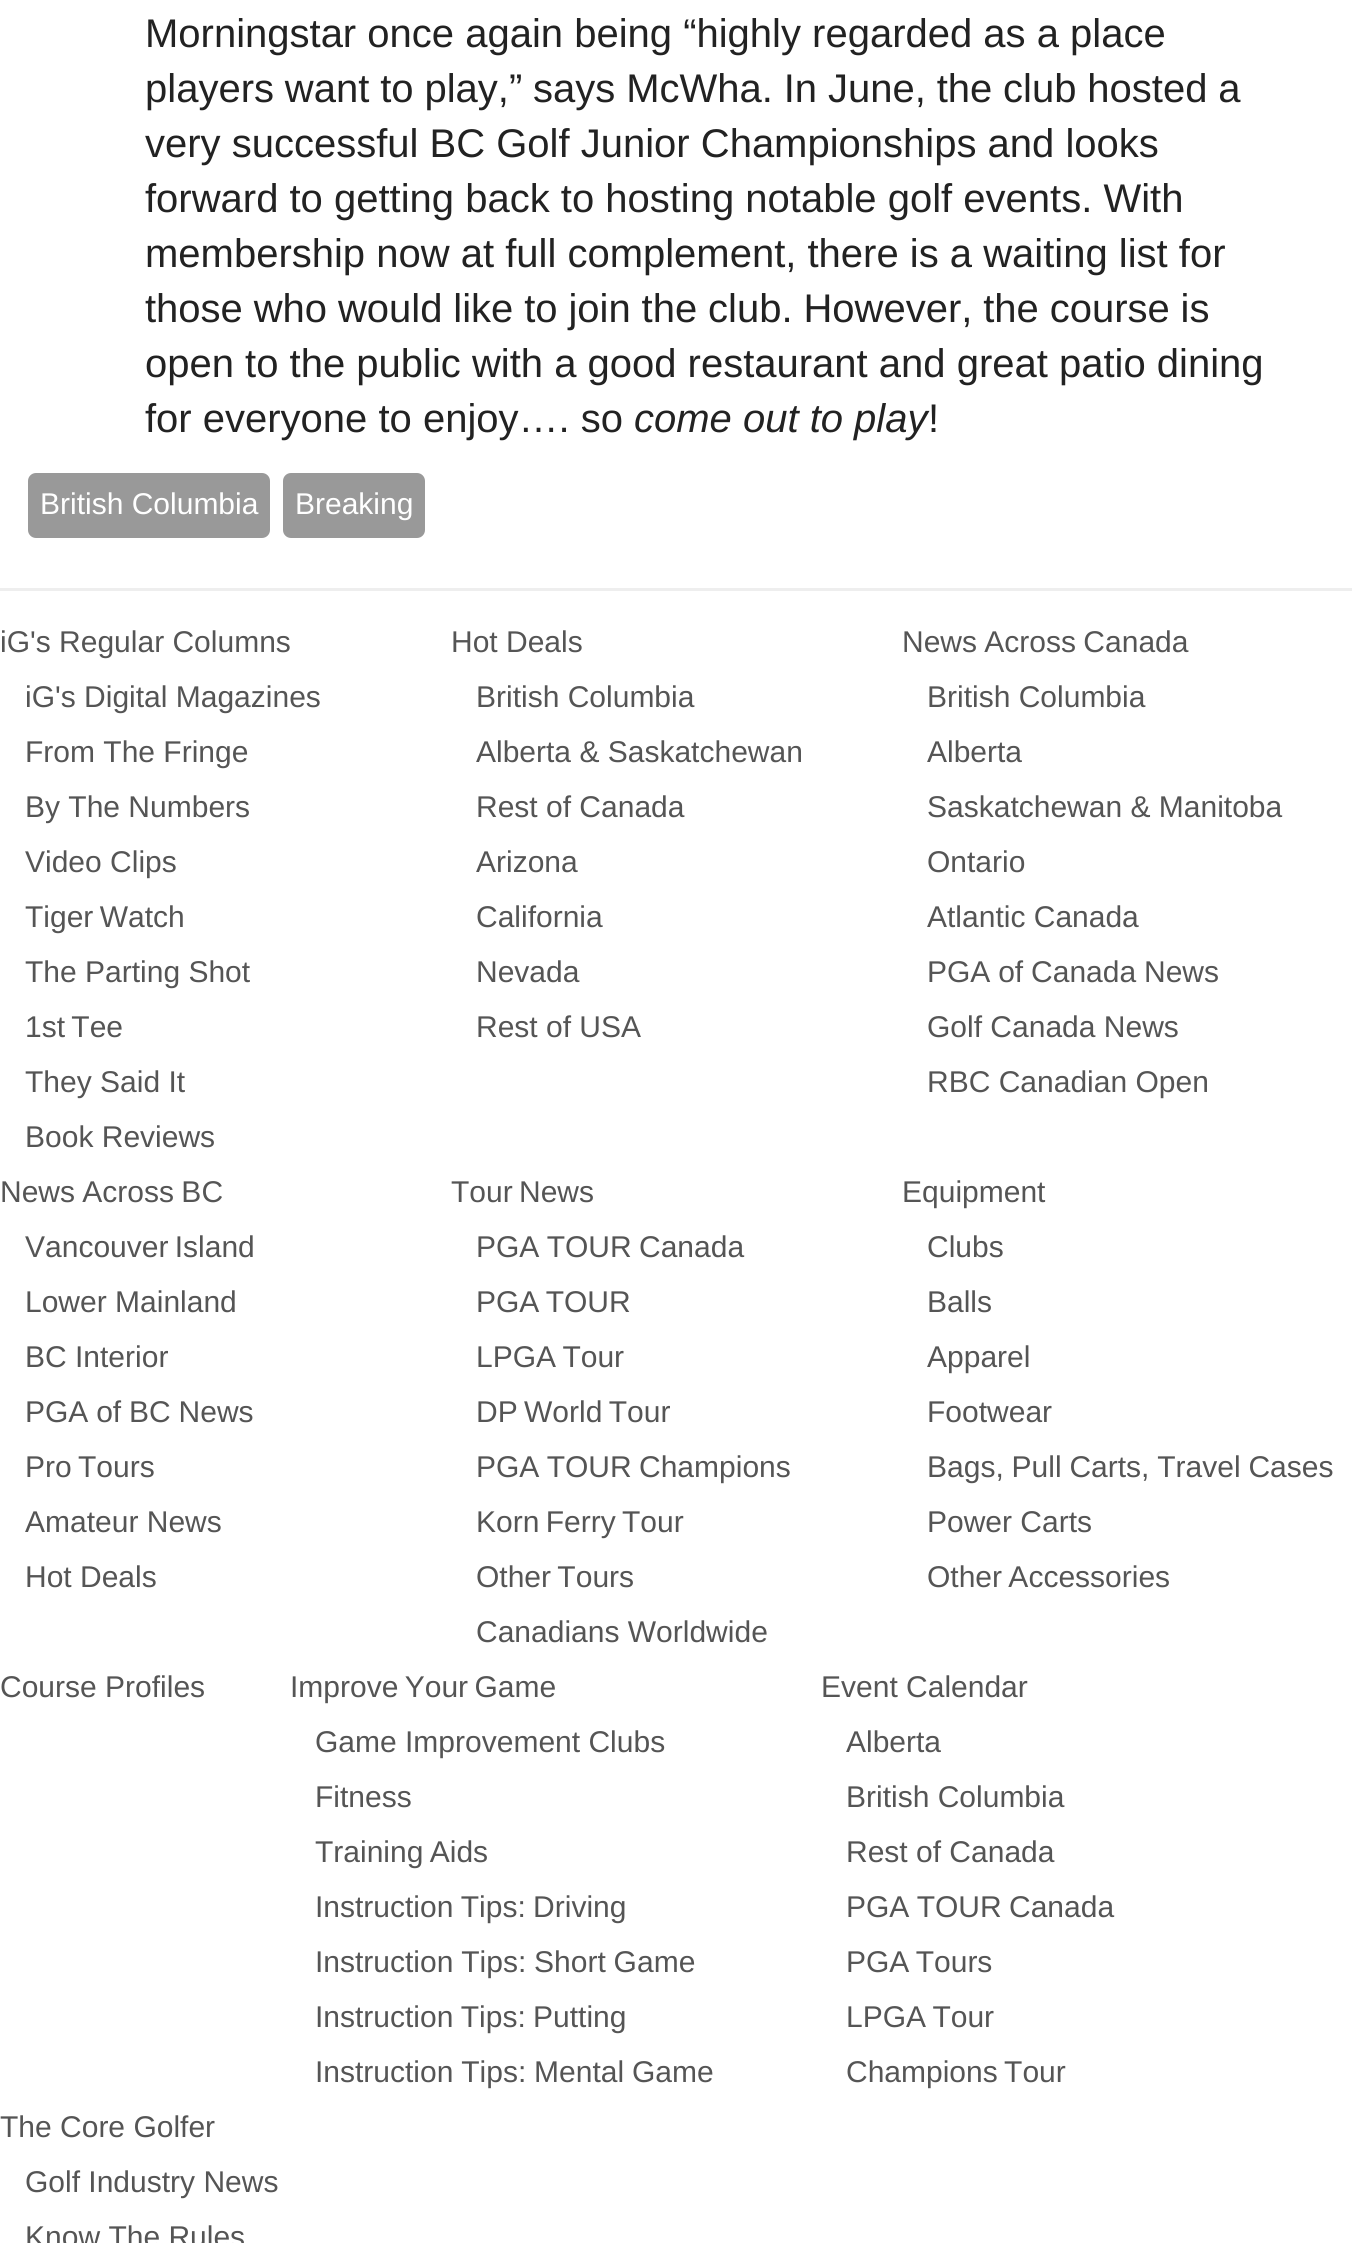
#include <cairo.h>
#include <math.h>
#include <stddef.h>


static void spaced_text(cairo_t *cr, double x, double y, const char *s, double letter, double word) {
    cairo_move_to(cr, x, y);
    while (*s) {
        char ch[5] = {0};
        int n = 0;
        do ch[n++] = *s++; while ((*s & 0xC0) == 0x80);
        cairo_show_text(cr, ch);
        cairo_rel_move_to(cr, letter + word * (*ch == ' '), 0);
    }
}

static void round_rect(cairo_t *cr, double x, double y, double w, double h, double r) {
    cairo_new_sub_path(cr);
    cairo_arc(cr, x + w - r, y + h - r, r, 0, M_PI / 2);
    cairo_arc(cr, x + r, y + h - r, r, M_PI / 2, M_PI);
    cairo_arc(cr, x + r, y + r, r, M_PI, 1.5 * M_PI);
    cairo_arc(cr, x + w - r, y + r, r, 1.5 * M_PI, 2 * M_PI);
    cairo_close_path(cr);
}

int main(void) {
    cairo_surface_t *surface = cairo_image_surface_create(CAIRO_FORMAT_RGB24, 1352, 2243);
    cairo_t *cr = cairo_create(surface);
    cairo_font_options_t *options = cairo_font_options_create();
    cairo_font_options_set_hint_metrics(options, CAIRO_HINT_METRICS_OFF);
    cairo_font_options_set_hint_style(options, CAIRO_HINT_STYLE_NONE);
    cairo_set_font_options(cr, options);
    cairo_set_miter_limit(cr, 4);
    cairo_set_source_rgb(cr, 1, 1, 1);
    cairo_paint(cr);
    cairo_select_font_face(cr, "Liberation Sans", CAIRO_FONT_SLANT_NORMAL, CAIRO_FONT_WEIGHT_NORMAL);
    cairo_set_font_size(cr, 40);
    cairo_set_source_rgb(cr, 0.133, 0.133, 0.133);
    cairo_move_to(cr, 145, 47);
    cairo_show_text(cr, "Morningstar once again being “highly regarded as a place");
    spaced_text(cr, 145, 102, "players want to play,” says McWha. In June, the club hosted a", 0, -0.25);
    cairo_move_to(cr, 145, 157);
    cairo_show_text(cr, "very successful BC Golf Junior Championships and looks");
    cairo_move_to(cr, 145, 212);
    cairo_show_text(cr, "forward to getting back to hosting notable golf events. With");
    cairo_move_to(cr, 145, 267);
    cairo_show_text(cr, "membership now at full complement, there is a waiting list for");
    spaced_text(cr, 145, 322, "those who would like to join the club. However, the course is", 0, -0.25);
    cairo_move_to(cr, 145, 377);
    cairo_show_text(cr, "open to the public with a good restaurant and great patio dining");
    cairo_move_to(cr, 145, 432);
    cairo_show_text(cr, "for everyone to enjoy…. so");
    cairo_select_font_face(cr, "Liberation Sans", CAIRO_FONT_SLANT_ITALIC, CAIRO_FONT_WEIGHT_NORMAL);
    cairo_move_to(cr, 634, 432);
    cairo_show_text(cr, "come out to play");
    cairo_select_font_face(cr, "Liberation Sans", CAIRO_FONT_SLANT_NORMAL, CAIRO_FONT_WEIGHT_NORMAL);
    cairo_move_to(cr, 928, 432);
    cairo_show_text(cr, "!");
    cairo_set_source_rgb(cr, 0.6, 0.6, 0.6);
    round_rect(cr, 28, 473, 242, 65, 8);
    cairo_fill(cr);
    cairo_set_font_size(cr, 30);
    cairo_set_source_rgb(cr, 1, 1, 1);
    cairo_move_to(cr, 40, 514);
    cairo_show_text(cr, "British Columbia");
    cairo_set_source_rgb(cr, 0.6, 0.6, 0.6);
    round_rect(cr, 283, 473, 142, 65, 8);
    cairo_fill(cr);
    cairo_set_source_rgb(cr, 1, 1, 1);
    cairo_move_to(cr, 295, 514);
    cairo_show_text(cr, "Breaking");
    cairo_set_source_rgb(cr, 0.933, 0.933, 0.933);
    cairo_rectangle(cr, 0, 588, 1352, 3);
    cairo_fill(cr);
    cairo_set_source_rgb(cr, 0.333, 0.333, 0.333);
    cairo_move_to(cr, 0, 652);
    cairo_show_text(cr, "iG's Regular Columns");
    cairo_move_to(cr, 25, 707);
    cairo_show_text(cr, "iG's Digital Magazines");
    cairo_move_to(cr, 25, 762);
    cairo_show_text(cr, "From The Fringe");
    cairo_move_to(cr, 25, 817);
    cairo_show_text(cr, "By The Numbers");
    cairo_move_to(cr, 25, 872);
    cairo_show_text(cr, "Video Clips");
    spaced_text(cr, 25, 927, "Tiger Watch", 0, -2);
    cairo_move_to(cr, 25, 982);
    cairo_show_text(cr, "The Parting Shot");
    spaced_text(cr, 25, 1037, "1st Tee", 0, -2);
    cairo_move_to(cr, 25, 1092);
    cairo_show_text(cr, "They Said It");
    cairo_move_to(cr, 25, 1147);
    cairo_show_text(cr, "Book Reviews");
    cairo_move_to(cr, 451, 652);
    cairo_show_text(cr, "Hot Deals");
    cairo_move_to(cr, 476, 707);
    cairo_show_text(cr, "British Columbia");
    cairo_move_to(cr, 476, 762);
    cairo_show_text(cr, "Alberta & Saskatchewan");
    cairo_move_to(cr, 476, 817);
    cairo_show_text(cr, "Rest of Canada");
    cairo_move_to(cr, 476, 872);
    cairo_show_text(cr, "Arizona");
    cairo_move_to(cr, 476, 927);
    cairo_show_text(cr, "California");
    cairo_move_to(cr, 476, 982);
    cairo_show_text(cr, "Nevada");
    cairo_move_to(cr, 476, 1037);
    cairo_show_text(cr, "Rest of USA");
    spaced_text(cr, 902, 652, "News Across Canada", 0, -1);
    cairo_move_to(cr, 927, 707);
    cairo_show_text(cr, "British Columbia");
    cairo_move_to(cr, 927, 762);
    cairo_show_text(cr, "Alberta");
    cairo_move_to(cr, 927, 817);
    cairo_show_text(cr, "Saskatchewan & Manitoba");
    cairo_move_to(cr, 927, 872);
    cairo_show_text(cr, "Ontario");
    cairo_move_to(cr, 927, 927);
    cairo_show_text(cr, "Atlantic Canada");
    spaced_text(cr, 927, 982, "PGA of Canada News", 0, -0.5);
    cairo_move_to(cr, 927, 1037);
    cairo_show_text(cr, "Golf Canada News");
    cairo_move_to(cr, 927, 1092);
    cairo_show_text(cr, "RBC Canadian Open");
    spaced_text(cr, 0, 1202, "News Across BC", 0, -1);
    spaced_text(cr, 25, 1257, "Vancouver Island", 0, -2);
    cairo_move_to(cr, 25, 1312);
    cairo_show_text(cr, "Lower Mainland");
    cairo_move_to(cr, 25, 1367);
    cairo_show_text(cr, "BC Interior");
    spaced_text(cr, 25, 1422, "PGA of BC News", 0, -0.5);
    spaced_text(cr, 25, 1477, "Pro Tours", 0, -2);
    cairo_move_to(cr, 25, 1532);
    cairo_show_text(cr, "Amateur News");
    cairo_move_to(cr, 25, 1587);
    cairo_show_text(cr, "Hot Deals");
    spaced_text(cr, 451, 1202, "Tour News", 0, -2);
    spaced_text(cr, 476, 1257, "PGA TOUR Canada", 0, -1);
    spaced_text(cr, 476, 1312, "PGA TOUR", 0, -2);
    spaced_text(cr, 476, 1367, "LPGA Tour", 0, -2);
    spaced_text(cr, 476, 1422, "DP World Tour", 0, -2);
    spaced_text(cr, 476, 1477, "PGA TOUR Champions", 0, -1);
    spaced_text(cr, 476, 1532, "Korn Ferry Tour", 0, -2);
    spaced_text(cr, 476, 1587, "Other Tours", 0, -2);
    cairo_move_to(cr, 476, 1642);
    cairo_show_text(cr, "Canadians Worldwide");
    cairo_move_to(cr, 902, 1202);
    cairo_show_text(cr, "Equipment");
    cairo_move_to(cr, 927, 1257);
    cairo_show_text(cr, "Clubs");
    cairo_move_to(cr, 927, 1312);
    cairo_show_text(cr, "Balls");
    cairo_move_to(cr, 927, 1367);
    cairo_show_text(cr, "Apparel");
    cairo_move_to(cr, 927, 1422);
    cairo_show_text(cr, "Footwear");
    spaced_text(cr, 927, 1477, "Bags, Pull Carts, Travel Cases", 0, -0.5);
    cairo_move_to(cr, 927, 1532);
    cairo_show_text(cr, "Power Carts");
    spaced_text(cr, 927, 1587, "Other Accessories", 0, -2);
    cairo_move_to(cr, 0, 1697);
    cairo_show_text(cr, "Course Profiles");
    spaced_text(cr, 290, 1697, "Improve Your Game", 0, -2);
    cairo_move_to(cr, 315, 1752);
    cairo_show_text(cr, "Game Improvement Clubs");
    cairo_move_to(cr, 315, 1807);
    cairo_show_text(cr, "Fitness");
    spaced_text(cr, 315, 1862, "Training Aids", 0, -2);
    spaced_text(cr, 315, 1917, "Instruction Tips: Driving", 0, -1);
    spaced_text(cr, 315, 1972, "Instruction Tips: Short Game", 0, -0.5);
    spaced_text(cr, 315, 2027, "Instruction Tips: Putting", 0, -1);
    spaced_text(cr, 315, 2082, "Instruction Tips: Mental Game", 0, -0.5);
    cairo_move_to(cr, 821, 1697);
    cairo_show_text(cr, "Event Calendar");
    cairo_move_to(cr, 846, 1752);
    cairo_show_text(cr, "Alberta");
    cairo_move_to(cr, 846, 1807);
    cairo_show_text(cr, "British Columbia");
    cairo_move_to(cr, 846, 1862);
    cairo_show_text(cr, "Rest of Canada");
    spaced_text(cr, 846, 1917, "PGA TOUR Canada", 0, -1);
    spaced_text(cr, 846, 1972, "PGA Tours", 0, -2);
    spaced_text(cr, 846, 2027, "LPGA Tour", 0, -2);
    spaced_text(cr, 846, 2082, "Champions Tour", 0, -2);
    cairo_move_to(cr, 0, 2137);
    cairo_show_text(cr, "The Core Golfer");
    cairo_move_to(cr, 25, 2192);
    cairo_show_text(cr, "Golf Industry News");
    cairo_move_to(cr, 25, 2247);
    cairo_show_text(cr, "Know The Rules");
    cairo_surface_write_to_png(surface, "page.png");
    cairo_font_options_destroy(options);
    cairo_destroy(cr);
    cairo_surface_destroy(surface);
    return 0;
}
